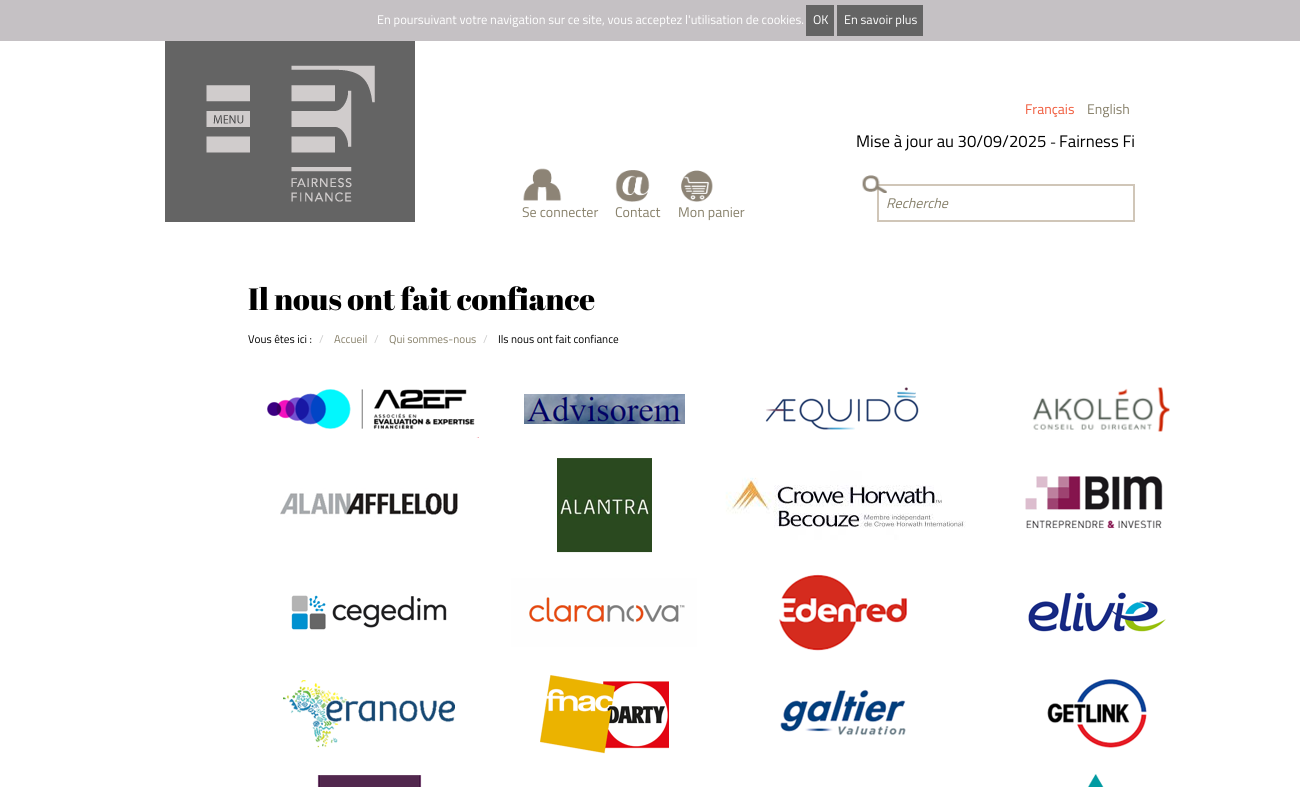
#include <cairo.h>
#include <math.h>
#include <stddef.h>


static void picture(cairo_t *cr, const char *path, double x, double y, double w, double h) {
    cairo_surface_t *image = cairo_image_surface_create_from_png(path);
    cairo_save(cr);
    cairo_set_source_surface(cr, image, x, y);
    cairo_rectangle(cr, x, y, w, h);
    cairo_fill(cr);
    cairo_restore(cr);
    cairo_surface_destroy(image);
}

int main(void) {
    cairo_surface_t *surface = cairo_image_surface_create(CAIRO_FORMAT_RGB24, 1300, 787);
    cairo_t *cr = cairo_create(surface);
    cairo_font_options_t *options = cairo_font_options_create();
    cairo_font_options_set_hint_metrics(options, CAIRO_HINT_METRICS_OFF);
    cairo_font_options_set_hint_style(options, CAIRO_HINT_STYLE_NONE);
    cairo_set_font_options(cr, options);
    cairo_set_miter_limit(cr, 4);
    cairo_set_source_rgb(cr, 1, 1, 1);
    cairo_paint(cr);
    cairo_set_source_rgb(cr, 0.773, 0.757, 0.769);
    cairo_rectangle(cr, 0, 0, 1300, 41);
    cairo_fill(cr);
    cairo_select_font_face(cr, "Titillium Web", CAIRO_FONT_SLANT_NORMAL, CAIRO_FONT_WEIGHT_NORMAL);
    cairo_set_font_size(cr, 12.6);
    cairo_set_source_rgb(cr, 1, 1, 1);
    cairo_move_to(cr, 377, 24);
    cairo_show_text(cr, "En poursuivant votre navigation sur ce site, vous acceptez l'utilisation de cookies.");
    cairo_set_source_rgb(cr, 0.392, 0.392, 0.392);
    cairo_rectangle(cr, 806, 5, 28, 31);
    cairo_fill(cr);
    cairo_set_source_rgb(cr, 1, 1, 1);
    cairo_move_to(cr, 813, 24);
    cairo_show_text(cr, "OK");
    cairo_set_source_rgb(cr, 0.392, 0.392, 0.392);
    cairo_rectangle(cr, 837, 5, 86, 31);
    cairo_fill(cr);
    cairo_set_source_rgb(cr, 1, 1, 1);
    cairo_move_to(cr, 844, 24);
    cairo_show_text(cr, "En savoir plus");
    cairo_set_source_rgb(cr, 0.392, 0.392, 0.392);
    cairo_rectangle(cr, 165, 41, 250, 181);
    cairo_fill(cr);
    picture(cr, "img1.png", 206, 65, 169, 137);
    cairo_set_font_size(cr, 14);
    cairo_set_source_rgb(cr, 0.941, 0.353, 0.231);
    cairo_move_to(cr, 1025, 114);
    cairo_show_text(cr, "Français");
    cairo_set_source_rgb(cr, 0.525, 0.498, 0.412);
    cairo_move_to(cr, 1087, 114);
    cairo_show_text(cr, "English");
    cairo_set_font_size(cr, 16.75);
    cairo_set_source_rgb(cr, 0, 0, 0);
    cairo_move_to(cr, 856, 147);
    cairo_show_text(cr, "Mise à jour au 30/09/2025");
    cairo_set_font_size(cr, 14);
    cairo_move_to(cr, 1050, 147);
    cairo_show_text(cr, "-");
    cairo_set_font_size(cr, 16.75);
    cairo_move_to(cr, 1059, 147);
    cairo_show_text(cr, "Fairness Fi");
    cairo_rectangle(cr, 878, 185, 256, 36);
    cairo_set_source_rgb(cr, 0.816, 0.776, 0.722);
    cairo_stroke(cr);
    picture(cr, "img2.png", 862, 175, 25, 18);
    cairo_select_font_face(cr, "Titillium Web", CAIRO_FONT_SLANT_ITALIC, CAIRO_FONT_WEIGHT_NORMAL);
    cairo_set_font_size(cr, 14);
    cairo_set_source_rgb(cr, 0.525, 0.498, 0.412);
    cairo_move_to(cr, 886, 208);
    cairo_show_text(cr, "Recherche");
    picture(cr, "img3.png", 523, 168, 39, 33);
    cairo_select_font_face(cr, "Titillium Web", CAIRO_FONT_SLANT_NORMAL, CAIRO_FONT_WEIGHT_NORMAL);
    cairo_move_to(cr, 522, 217);
    cairo_show_text(cr, "Se connecter");
    picture(cr, "img4.png", 615, 170, 35, 32);
    cairo_move_to(cr, 615, 217);
    cairo_show_text(cr, "Contact");
    picture(cr, "img5.png", 681, 170, 32, 32);
    cairo_move_to(cr, 678, 217);
    cairo_show_text(cr, "Mon panier");
    cairo_select_font_face(cr, "Abril Fatface", CAIRO_FONT_SLANT_NORMAL, CAIRO_FONT_WEIGHT_NORMAL);
    cairo_set_font_size(cr, 30.75);
    cairo_set_source_rgb(cr, 0, 0, 0);
    cairo_move_to(cr, 248, 310);
    cairo_show_text(cr, "Il nous ont fait confiance");
    cairo_select_font_face(cr, "Titillium Web", CAIRO_FONT_SLANT_NORMAL, CAIRO_FONT_WEIGHT_NORMAL);
    cairo_set_font_size(cr, 11.25);
    cairo_move_to(cr, 248, 343);
    cairo_show_text(cr, "Vous êtes ici :");
    cairo_set_source_rgb(cr, 0.8, 0.8, 0.8);
    cairo_move_to(cr, 319, 343);
    cairo_show_text(cr, "/");
    cairo_set_source_rgb(cr, 0.525, 0.498, 0.412);
    cairo_move_to(cr, 334, 343);
    cairo_show_text(cr, "Accueil");
    cairo_set_source_rgb(cr, 0.8, 0.8, 0.8);
    cairo_move_to(cr, 374, 343);
    cairo_show_text(cr, "/");
    cairo_set_source_rgb(cr, 0.525, 0.498, 0.412);
    cairo_move_to(cr, 389, 343);
    cairo_show_text(cr, "Qui sommes-nous");
    cairo_set_source_rgb(cr, 0.8, 0.8, 0.8);
    cairo_move_to(cr, 483, 343);
    cairo_show_text(cr, "/");
    cairo_set_source_rgb(cr, 0, 0, 0);
    cairo_move_to(cr, 498, 343);
    cairo_show_text(cr, "Ils nous ont fait confiance");
    picture(cr, "img6.png", 267, 387, 903, 400);
    cairo_surface_write_to_png(surface, "page.png");
    cairo_font_options_destroy(options);
    cairo_destroy(cr);
    cairo_surface_destroy(surface);
    return 0;
}
